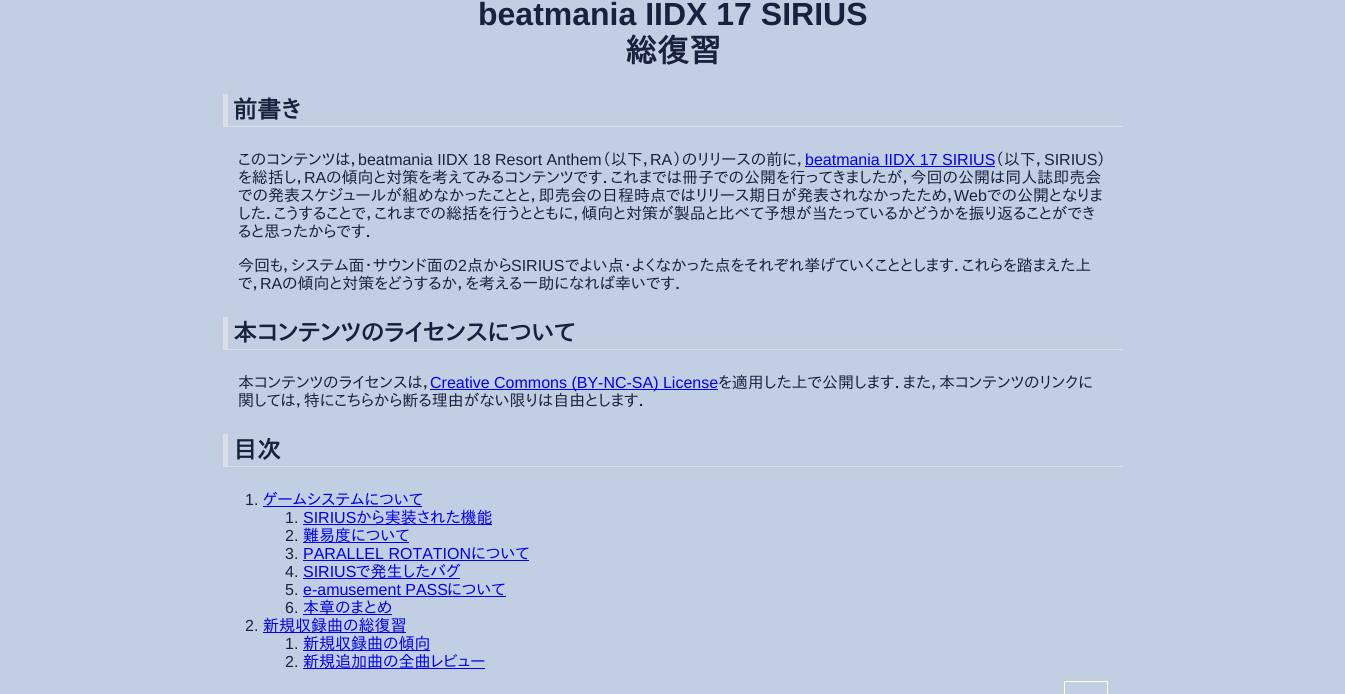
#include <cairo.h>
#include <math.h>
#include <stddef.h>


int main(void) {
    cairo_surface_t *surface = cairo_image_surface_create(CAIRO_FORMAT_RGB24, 1345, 694);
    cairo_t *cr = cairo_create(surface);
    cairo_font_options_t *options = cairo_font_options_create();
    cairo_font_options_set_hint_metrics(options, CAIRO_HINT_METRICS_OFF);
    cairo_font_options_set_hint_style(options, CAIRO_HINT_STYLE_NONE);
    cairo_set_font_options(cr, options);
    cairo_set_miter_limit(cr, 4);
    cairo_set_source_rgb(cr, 0.761, 0.812, 0.886);
    cairo_paint(cr);
    cairo_select_font_face(cr, "Liberation Sans", CAIRO_FONT_SLANT_NORMAL, CAIRO_FONT_WEIGHT_BOLD);
    cairo_set_font_size(cr, 32);
    cairo_set_source_rgb(cr, 0.102, 0.129, 0.243);
    cairo_move_to(cr, 478, 25);
    cairo_show_text(cr, "beatmania IIDX 17 SIRIUS");
    cairo_select_font_face(cr, "IPAPGothic", CAIRO_FONT_SLANT_NORMAL, CAIRO_FONT_WEIGHT_BOLD);
    cairo_move_to(cr, 625, 62);
    cairo_show_text(cr, "総復習");
    cairo_set_source_rgb(cr, 0.871, 0.871, 0.91);
    cairo_rectangle(cr, 223, 126, 900, 1);
    cairo_fill(cr);
    cairo_rectangle(cr, 223, 94, 5, 33);
    cairo_fill(cr);
    cairo_set_font_size(cr, 24);
    cairo_set_source_rgb(cr, 0.102, 0.129, 0.243);
    cairo_move_to(cr, 233, 118);
    cairo_show_text(cr, "前書き");
    cairo_select_font_face(cr, "IPAPGothic", CAIRO_FONT_SLANT_NORMAL, CAIRO_FONT_WEIGHT_NORMAL);
    cairo_set_font_size(cr, 16);
    cairo_move_to(cr, 238, 165);
    cairo_show_text(cr, "このコンテンツは，");
    cairo_select_font_face(cr, "Liberation Sans", CAIRO_FONT_SLANT_NORMAL, CAIRO_FONT_WEIGHT_NORMAL);
    cairo_move_to(cr, 358, 165);
    cairo_show_text(cr, "beatmania IIDX 18 Resort Anthem");
    cairo_select_font_face(cr, "IPAPGothic", CAIRO_FONT_SLANT_NORMAL, CAIRO_FONT_WEIGHT_NORMAL);
    cairo_move_to(cr, 602, 165);
    cairo_show_text(cr, "（以下，");
    cairo_select_font_face(cr, "Liberation Sans", CAIRO_FONT_SLANT_NORMAL, CAIRO_FONT_WEIGHT_NORMAL);
    cairo_move_to(cr, 650, 165);
    cairo_show_text(cr, "RA");
    cairo_select_font_face(cr, "IPAPGothic", CAIRO_FONT_SLANT_NORMAL, CAIRO_FONT_WEIGHT_NORMAL);
    cairo_move_to(cr, 673, 165);
    cairo_show_text(cr, "）のリリースの前に，");
    cairo_select_font_face(cr, "Liberation Sans", CAIRO_FONT_SLANT_NORMAL, CAIRO_FONT_WEIGHT_NORMAL);
    cairo_set_source_rgb(cr, 0, 0, 0.933);
    cairo_move_to(cr, 805, 165);
    cairo_show_text(cr, "beatmania IIDX 17 SIRIUS");
    cairo_rectangle(cr, 805, 166, 190, 1);
    cairo_fill(cr);
    cairo_select_font_face(cr, "IPAPGothic", CAIRO_FONT_SLANT_NORMAL, CAIRO_FONT_WEIGHT_NORMAL);
    cairo_set_source_rgb(cr, 0.102, 0.129, 0.243);
    cairo_move_to(cr, 995, 165);
    cairo_show_text(cr, "（以下，");
    cairo_select_font_face(cr, "Liberation Sans", CAIRO_FONT_SLANT_NORMAL, CAIRO_FONT_WEIGHT_NORMAL);
    cairo_move_to(cr, 1044, 165);
    cairo_show_text(cr, "SIRIUS");
    cairo_select_font_face(cr, "IPAPGothic", CAIRO_FONT_SLANT_NORMAL, CAIRO_FONT_WEIGHT_NORMAL);
    cairo_move_to(cr, 1097, 165);
    cairo_show_text(cr, "）");
    cairo_move_to(cr, 238, 183);
    cairo_show_text(cr, "を総括し，");
    cairo_select_font_face(cr, "Liberation Sans", CAIRO_FONT_SLANT_NORMAL, CAIRO_FONT_WEIGHT_NORMAL);
    cairo_move_to(cr, 304, 183);
    cairo_show_text(cr, "RA");
    cairo_select_font_face(cr, "IPAPGothic", CAIRO_FONT_SLANT_NORMAL, CAIRO_FONT_WEIGHT_NORMAL);
    cairo_move_to(cr, 326, 183);
    cairo_show_text(cr, "の傾向と対策を考えてみるコンテンツです．これまでは冊子での公開を行ってきましたが，今回の公開は同人誌即売会");
    cairo_move_to(cr, 238, 201);
    cairo_show_text(cr, "での発表スケジュールが組めなかったことと，即売会の日程時点ではリリース期日が発表されなかったため，");
    cairo_select_font_face(cr, "Liberation Sans", CAIRO_FONT_SLANT_NORMAL, CAIRO_FONT_WEIGHT_NORMAL);
    cairo_move_to(cr, 954, 201);
    cairo_show_text(cr, "Web");
    cairo_select_font_face(cr, "IPAPGothic", CAIRO_FONT_SLANT_NORMAL, CAIRO_FONT_WEIGHT_NORMAL);
    cairo_move_to(cr, 987, 201);
    cairo_show_text(cr, "での公開となりま");
    cairo_move_to(cr, 238, 219);
    cairo_show_text(cr, "した．こうすることで，これまでの総括を行うとともに，傾向と対策が製品と比べて予想が当たっているかどうかを振り返ることができ");
    cairo_move_to(cr, 238, 237);
    cairo_show_text(cr, "ると思ったからです．");
    cairo_move_to(cr, 238, 271);
    cairo_show_text(cr, "今回も，システム面・サウンド面の");
    cairo_select_font_face(cr, "Liberation Sans", CAIRO_FONT_SLANT_NORMAL, CAIRO_FONT_WEIGHT_NORMAL);
    cairo_move_to(cr, 458, 271);
    cairo_show_text(cr, "2");
    cairo_select_font_face(cr, "IPAPGothic", CAIRO_FONT_SLANT_NORMAL, CAIRO_FONT_WEIGHT_NORMAL);
    cairo_move_to(cr, 467, 271);
    cairo_show_text(cr, "点から");
    cairo_select_font_face(cr, "Liberation Sans", CAIRO_FONT_SLANT_NORMAL, CAIRO_FONT_WEIGHT_NORMAL);
    cairo_move_to(cr, 511, 271);
    cairo_show_text(cr, "SIRIUS");
    cairo_select_font_face(cr, "IPAPGothic", CAIRO_FONT_SLANT_NORMAL, CAIRO_FONT_WEIGHT_NORMAL);
    cairo_move_to(cr, 565, 271);
    cairo_show_text(cr, "でよい点・よくなかった点をそれぞれ挙げていくこととします．これらを踏まえた上");
    cairo_move_to(cr, 238, 289);
    cairo_show_text(cr, "で，");
    cairo_select_font_face(cr, "Liberation Sans", CAIRO_FONT_SLANT_NORMAL, CAIRO_FONT_WEIGHT_NORMAL);
    cairo_move_to(cr, 260, 289);
    cairo_show_text(cr, "RA");
    cairo_select_font_face(cr, "IPAPGothic", CAIRO_FONT_SLANT_NORMAL, CAIRO_FONT_WEIGHT_NORMAL);
    cairo_move_to(cr, 282, 289);
    cairo_show_text(cr, "の傾向と対策をどうするか，を考える一助になれば幸いです．");
    cairo_set_source_rgb(cr, 0.871, 0.871, 0.91);
    cairo_rectangle(cr, 223, 349, 900, 1);
    cairo_fill(cr);
    cairo_rectangle(cr, 223, 317, 5, 33);
    cairo_fill(cr);
    cairo_select_font_face(cr, "IPAPGothic", CAIRO_FONT_SLANT_NORMAL, CAIRO_FONT_WEIGHT_BOLD);
    cairo_set_font_size(cr, 24);
    cairo_set_source_rgb(cr, 0.102, 0.129, 0.243);
    cairo_move_to(cr, 233, 341);
    cairo_show_text(cr, "本コンテンツのライセンスについて");
    cairo_select_font_face(cr, "IPAPGothic", CAIRO_FONT_SLANT_NORMAL, CAIRO_FONT_WEIGHT_NORMAL);
    cairo_set_font_size(cr, 16);
    cairo_move_to(cr, 238, 388);
    cairo_show_text(cr, "本コンテンツのライセンスは，");
    cairo_set_source_rgb(cr, 0, 0, 0.933);
    cairo_rectangle(cr, 430, 389, 288, 1);
    cairo_fill(cr);
    cairo_select_font_face(cr, "Liberation Sans", CAIRO_FONT_SLANT_NORMAL, CAIRO_FONT_WEIGHT_NORMAL);
    cairo_move_to(cr, 430, 388);
    cairo_show_text(cr, "Creative Commons (BY-NC-SA) License");
    cairo_select_font_face(cr, "IPAPGothic", CAIRO_FONT_SLANT_NORMAL, CAIRO_FONT_WEIGHT_NORMAL);
    cairo_set_source_rgb(cr, 0.102, 0.129, 0.243);
    cairo_move_to(cr, 718, 388);
    cairo_show_text(cr, "を適用した上で公開します．また，本コンテンツのリンクに");
    cairo_move_to(cr, 238, 406);
    cairo_show_text(cr, "関しては，特にこちらから断る理由がない限りは自由とします．");
    cairo_set_source_rgb(cr, 0.871, 0.871, 0.91);
    cairo_rectangle(cr, 223, 466, 900, 1);
    cairo_fill(cr);
    cairo_rectangle(cr, 223, 434, 5, 33);
    cairo_fill(cr);
    cairo_select_font_face(cr, "IPAPGothic", CAIRO_FONT_SLANT_NORMAL, CAIRO_FONT_WEIGHT_BOLD);
    cairo_set_font_size(cr, 24);
    cairo_set_source_rgb(cr, 0.102, 0.129, 0.243);
    cairo_move_to(cr, 233, 458);
    cairo_show_text(cr, "目次");
    cairo_select_font_face(cr, "Liberation Sans", CAIRO_FONT_SLANT_NORMAL, CAIRO_FONT_WEIGHT_NORMAL);
    cairo_set_font_size(cr, 16);
    cairo_move_to(cr, 245, 505);
    cairo_show_text(cr, "1.");
    cairo_select_font_face(cr, "IPAPGothic", CAIRO_FONT_SLANT_NORMAL, CAIRO_FONT_WEIGHT_NORMAL);
    cairo_set_source_rgb(cr, 0, 0, 0.933);
    cairo_move_to(cr, 263, 505);
    cairo_show_text(cr, "ゲームシステムについて");
    cairo_rectangle(cr, 263, 506, 159, 1);
    cairo_fill(cr);
    cairo_select_font_face(cr, "Liberation Sans", CAIRO_FONT_SLANT_NORMAL, CAIRO_FONT_WEIGHT_NORMAL);
    cairo_set_source_rgb(cr, 0.102, 0.129, 0.243);
    cairo_move_to(cr, 285, 523);
    cairo_show_text(cr, "1.");
    cairo_set_source_rgb(cr, 0, 0, 0.933);
    cairo_move_to(cr, 303, 523);
    cairo_show_text(cr, "SIRIUS");
    cairo_rectangle(cr, 303, 524, 189, 1);
    cairo_fill(cr);
    cairo_select_font_face(cr, "IPAPGothic", CAIRO_FONT_SLANT_NORMAL, CAIRO_FONT_WEIGHT_NORMAL);
    cairo_move_to(cr, 356, 523);
    cairo_show_text(cr, "から実装された機能");
    cairo_select_font_face(cr, "Liberation Sans", CAIRO_FONT_SLANT_NORMAL, CAIRO_FONT_WEIGHT_NORMAL);
    cairo_set_source_rgb(cr, 0.102, 0.129, 0.243);
    cairo_move_to(cr, 285, 541);
    cairo_show_text(cr, "2.");
    cairo_set_source_rgb(cr, 0, 0, 0.933);
    cairo_rectangle(cr, 303, 542, 106, 1);
    cairo_fill(cr);
    cairo_select_font_face(cr, "IPAPGothic", CAIRO_FONT_SLANT_NORMAL, CAIRO_FONT_WEIGHT_NORMAL);
    cairo_move_to(cr, 303, 541);
    cairo_show_text(cr, "難易度について");
    cairo_select_font_face(cr, "Liberation Sans", CAIRO_FONT_SLANT_NORMAL, CAIRO_FONT_WEIGHT_NORMAL);
    cairo_set_source_rgb(cr, 0.102, 0.129, 0.243);
    cairo_move_to(cr, 285, 559);
    cairo_show_text(cr, "3.");
    cairo_set_source_rgb(cr, 0, 0, 0.933);
    cairo_move_to(cr, 303, 559);
    cairo_show_text(cr, "PARALLEL ROTATION");
    cairo_rectangle(cr, 303, 560, 226, 1);
    cairo_fill(cr);
    cairo_select_font_face(cr, "IPAPGothic", CAIRO_FONT_SLANT_NORMAL, CAIRO_FONT_WEIGHT_NORMAL);
    cairo_move_to(cr, 471, 559);
    cairo_show_text(cr, "について");
    cairo_select_font_face(cr, "Liberation Sans", CAIRO_FONT_SLANT_NORMAL, CAIRO_FONT_WEIGHT_NORMAL);
    cairo_set_source_rgb(cr, 0.102, 0.129, 0.243);
    cairo_move_to(cr, 285, 577);
    cairo_show_text(cr, "4.");
    cairo_set_source_rgb(cr, 0, 0, 0.933);
    cairo_move_to(cr, 303, 577);
    cairo_show_text(cr, "SIRIUS");
    cairo_rectangle(cr, 303, 578, 157, 1);
    cairo_fill(cr);
    cairo_select_font_face(cr, "IPAPGothic", CAIRO_FONT_SLANT_NORMAL, CAIRO_FONT_WEIGHT_NORMAL);
    cairo_move_to(cr, 356, 577);
    cairo_show_text(cr, "で発生したバグ");
    cairo_select_font_face(cr, "Liberation Sans", CAIRO_FONT_SLANT_NORMAL, CAIRO_FONT_WEIGHT_NORMAL);
    cairo_set_source_rgb(cr, 0.102, 0.129, 0.243);
    cairo_move_to(cr, 285, 595);
    cairo_show_text(cr, "5.");
    cairo_set_source_rgb(cr, 0, 0, 0.933);
    cairo_move_to(cr, 303, 595);
    cairo_show_text(cr, "e-amusement PASS");
    cairo_rectangle(cr, 303, 596, 203, 1);
    cairo_fill(cr);
    cairo_select_font_face(cr, "IPAPGothic", CAIRO_FONT_SLANT_NORMAL, CAIRO_FONT_WEIGHT_NORMAL);
    cairo_move_to(cr, 447, 595);
    cairo_show_text(cr, "について");
    cairo_select_font_face(cr, "Liberation Sans", CAIRO_FONT_SLANT_NORMAL, CAIRO_FONT_WEIGHT_NORMAL);
    cairo_set_source_rgb(cr, 0.102, 0.129, 0.243);
    cairo_move_to(cr, 285, 613);
    cairo_show_text(cr, "6.");
    cairo_set_source_rgb(cr, 0, 0, 0.933);
    cairo_rectangle(cr, 303, 614, 89, 1);
    cairo_fill(cr);
    cairo_select_font_face(cr, "IPAPGothic", CAIRO_FONT_SLANT_NORMAL, CAIRO_FONT_WEIGHT_NORMAL);
    cairo_move_to(cr, 303, 613);
    cairo_show_text(cr, "本章のまとめ");
    cairo_select_font_face(cr, "Liberation Sans", CAIRO_FONT_SLANT_NORMAL, CAIRO_FONT_WEIGHT_NORMAL);
    cairo_set_source_rgb(cr, 0.102, 0.129, 0.243);
    cairo_move_to(cr, 245, 631);
    cairo_show_text(cr, "2.");
    cairo_set_source_rgb(cr, 0, 0, 0.933);
    cairo_rectangle(cr, 263, 632, 143, 1);
    cairo_fill(cr);
    cairo_select_font_face(cr, "IPAPGothic", CAIRO_FONT_SLANT_NORMAL, CAIRO_FONT_WEIGHT_NORMAL);
    cairo_move_to(cr, 263, 631);
    cairo_show_text(cr, "新規収録曲の総復習");
    cairo_select_font_face(cr, "Liberation Sans", CAIRO_FONT_SLANT_NORMAL, CAIRO_FONT_WEIGHT_NORMAL);
    cairo_set_source_rgb(cr, 0.102, 0.129, 0.243);
    cairo_move_to(cr, 285, 649);
    cairo_show_text(cr, "1.");
    cairo_set_source_rgb(cr, 0, 0, 0.933);
    cairo_rectangle(cr, 303, 650, 127, 1);
    cairo_fill(cr);
    cairo_select_font_face(cr, "IPAPGothic", CAIRO_FONT_SLANT_NORMAL, CAIRO_FONT_WEIGHT_NORMAL);
    cairo_move_to(cr, 303, 649);
    cairo_show_text(cr, "新規収録曲の傾向");
    cairo_select_font_face(cr, "Liberation Sans", CAIRO_FONT_SLANT_NORMAL, CAIRO_FONT_WEIGHT_NORMAL);
    cairo_set_source_rgb(cr, 0.102, 0.129, 0.243);
    cairo_move_to(cr, 285, 667);
    cairo_show_text(cr, "2.");
    cairo_set_source_rgb(cr, 0, 0, 0.933);
    cairo_rectangle(cr, 303, 668, 182, 1);
    cairo_fill(cr);
    cairo_select_font_face(cr, "IPAPGothic", CAIRO_FONT_SLANT_NORMAL, CAIRO_FONT_WEIGHT_NORMAL);
    cairo_move_to(cr, 303, 667);
    cairo_show_text(cr, "新規追加曲の全曲レビュー");
    cairo_rectangle(cr, 1064.5, 681.5, 43, 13);
    cairo_set_source_rgb(cr, 1, 1, 0.867);
    cairo_set_line_width(cr, 1);
    cairo_stroke(cr);
    cairo_surface_write_to_png(surface, "page.png");
    cairo_font_options_destroy(options);
    cairo_destroy(cr);
    cairo_surface_destroy(surface);
    return 0;
}
